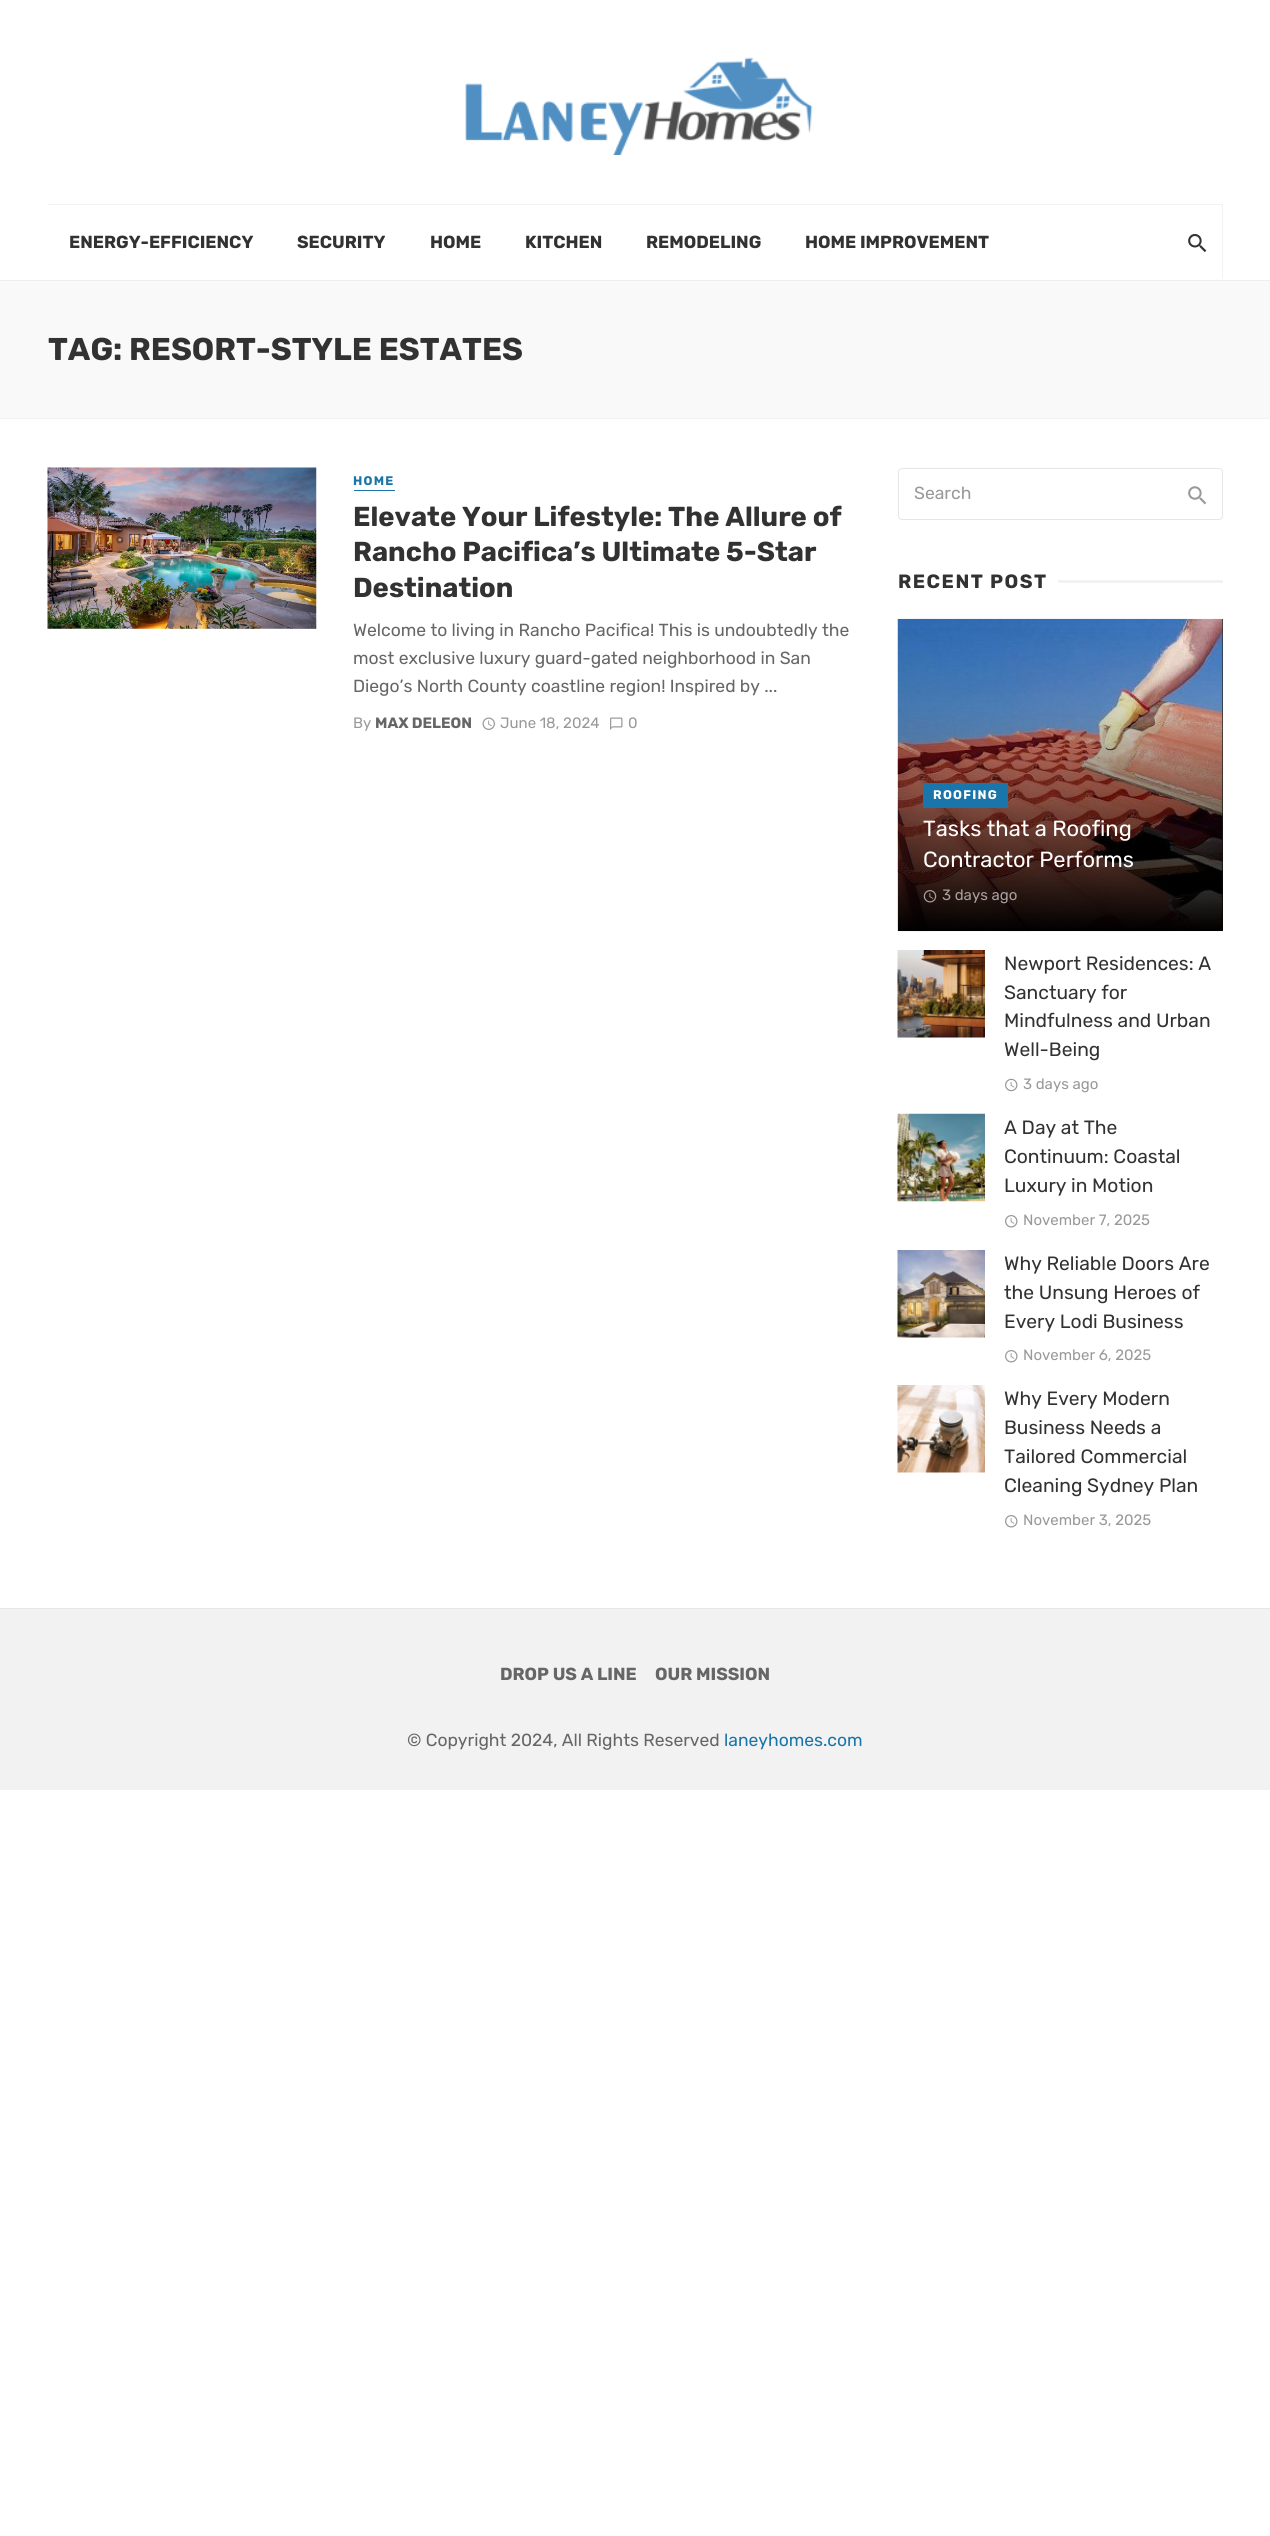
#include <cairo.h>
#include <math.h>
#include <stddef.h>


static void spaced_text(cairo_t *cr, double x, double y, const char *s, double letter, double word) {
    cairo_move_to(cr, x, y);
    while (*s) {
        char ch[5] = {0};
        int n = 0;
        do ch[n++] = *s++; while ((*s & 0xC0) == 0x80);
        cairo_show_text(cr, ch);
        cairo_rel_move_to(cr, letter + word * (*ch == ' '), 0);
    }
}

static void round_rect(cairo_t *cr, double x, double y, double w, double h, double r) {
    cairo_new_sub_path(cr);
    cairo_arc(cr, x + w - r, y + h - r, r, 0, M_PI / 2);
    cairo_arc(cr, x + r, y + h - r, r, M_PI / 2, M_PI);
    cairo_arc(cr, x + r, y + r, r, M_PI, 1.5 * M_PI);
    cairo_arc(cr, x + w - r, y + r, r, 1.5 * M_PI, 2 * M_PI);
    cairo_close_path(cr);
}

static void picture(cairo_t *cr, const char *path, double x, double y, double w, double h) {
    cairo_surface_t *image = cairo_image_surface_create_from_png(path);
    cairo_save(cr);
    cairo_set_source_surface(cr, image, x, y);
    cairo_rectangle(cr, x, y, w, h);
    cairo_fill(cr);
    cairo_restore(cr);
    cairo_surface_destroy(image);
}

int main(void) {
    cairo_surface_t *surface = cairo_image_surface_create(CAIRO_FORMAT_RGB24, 1270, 2536);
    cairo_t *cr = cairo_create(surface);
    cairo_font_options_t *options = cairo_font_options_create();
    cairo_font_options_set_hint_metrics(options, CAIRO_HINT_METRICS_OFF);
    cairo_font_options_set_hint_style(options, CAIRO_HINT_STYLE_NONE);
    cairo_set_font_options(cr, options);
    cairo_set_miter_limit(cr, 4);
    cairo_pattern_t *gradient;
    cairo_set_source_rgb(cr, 1, 1, 1);
    cairo_paint(cr);
    cairo_rectangle(cr, -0.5, 279.5, 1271, 139);
    cairo_set_source_rgb(cr, 0.949, 0.949, 0.949);
    cairo_set_line_width(cr, 1);
    cairo_stroke(cr);
    cairo_set_source_rgb(cr, 0.933, 0.933, 0.933);
    cairo_rectangle(cr, 0, 280, 1270, 1);
    cairo_fill(cr);
    cairo_set_source_rgb(cr, 1, 1, 1);
    cairo_rectangle(cr, 0, 279, 1270, 1);
    cairo_fill(cr);
    picture(cr, "img1.png", 465, 57, 348, 98);
    cairo_set_source_rgb(cr, 0.949, 0.949, 0.949);
    cairo_new_path(cr);
    cairo_move_to(cr, 48, 204);
    cairo_line_to(cr, 48, 205);
    cairo_line_to(cr, 1222, 205);
    cairo_line_to(cr, 1222, 279);
    cairo_line_to(cr, 1223, 279);
    cairo_line_to(cr, 1223, 204);
    cairo_close_path(cr);
    cairo_fill(cr);
    cairo_select_font_face(cr, "Rubik", CAIRO_FONT_SLANT_NORMAL, CAIRO_FONT_WEIGHT_BOLD);
    cairo_set_font_size(cr, 17.5);
    cairo_set_source_rgb(cr, 0.196, 0.196, 0.196);
    cairo_move_to(cr, 69, 248);
    cairo_show_text(cr, "ENERGY-EFFICIENCY");
    cairo_move_to(cr, 297, 248);
    cairo_show_text(cr, "SECURITY");
    cairo_move_to(cr, 430, 248);
    cairo_show_text(cr, "HOME");
    cairo_move_to(cr, 525, 248);
    cairo_show_text(cr, "KITCHEN");
    cairo_move_to(cr, 646, 248);
    cairo_show_text(cr, "REMODELING");
    cairo_move_to(cr, 805, 248);
    cairo_show_text(cr, "HOME IMPROVEMENT");
    picture(cr, "img2.png", 1188, 234, 19, 19);
    cairo_set_source_rgb(cr, 0.973, 0.973, 0.973);
    cairo_rectangle(cr, 0, 281, 1270, 137);
    cairo_fill(cr);
    cairo_set_font_size(cr, 31.5);
    cairo_set_source_rgb(cr, 0.196, 0.196, 0.196);
    cairo_move_to(cr, 48, 360);
    cairo_show_text(cr, "TAG: RESORT-STYLE ESTATES");
    picture(cr, "img3.png", 47, 467, 270, 162);
    cairo_set_source_rgb(cr, 0.098, 0.459, 0.667);
    cairo_rectangle(cr, 354, 490, 41, 1);
    cairo_fill(cr);
    cairo_set_font_size(cr, 12.5);
    spaced_text(cr, 353, 485, "HOME", 1.25, 0);
    cairo_set_font_size(cr, 27.4);
    cairo_set_source_rgb(cr, 0.196, 0.196, 0.196);
    cairo_move_to(cr, 353, 526);
    cairo_show_text(cr, "Elevate Your Lifestyle: The Allure of");
    cairo_move_to(cr, 353, 561);
    cairo_show_text(cr, "Rancho Pacifica’s Ultimate 5-Star");
    cairo_move_to(cr, 353, 597);
    cairo_show_text(cr, "Destination");
    cairo_select_font_face(cr, "Rubik", CAIRO_FONT_SLANT_NORMAL, CAIRO_FONT_WEIGHT_NORMAL);
    cairo_set_font_size(cr, 17.5);
    cairo_set_source_rgb(cr, 0.4, 0.4, 0.4);
    cairo_move_to(cr, 353, 636);
    cairo_show_text(cr, "Welcome to living in Rancho Pacifica! This is undoubtedly the");
    cairo_move_to(cr, 353, 664);
    cairo_show_text(cr, "most exclusive luxury guard-gated neighborhood in San");
    cairo_move_to(cr, 353, 692);
    cairo_show_text(cr, "Diego’s North County coastline region! Inspired by ...");
    cairo_set_font_size(cr, 15);
    cairo_set_source_rgb(cr, 0.6, 0.6, 0.6);
    cairo_move_to(cr, 353, 728);
    cairo_show_text(cr, "By");
    cairo_select_font_face(cr, "Rubik", CAIRO_FONT_SLANT_NORMAL, CAIRO_FONT_WEIGHT_BOLD);
    cairo_set_source_rgb(cr, 0.4, 0.4, 0.4);
    cairo_move_to(cr, 375, 728);
    cairo_show_text(cr, "MAX DELEON");
    picture(cr, "img4.png", 482, 717, 13, 13);
    cairo_select_font_face(cr, "Rubik", CAIRO_FONT_SLANT_NORMAL, CAIRO_FONT_WEIGHT_NORMAL);
    cairo_set_source_rgb(cr, 0.6, 0.6, 0.6);
    cairo_move_to(cr, 500, 728);
    cairo_show_text(cr, "June 18, 2024");
    picture(cr, "img5.png", 610, 717, 13, 13);
    cairo_move_to(cr, 628, 728);
    cairo_show_text(cr, "0");
    round_rect(cr, 898.5, 468.5, 324, 51, 3.5);
    cairo_set_source_rgb(cr, 0.902, 0.902, 0.902);
    cairo_stroke(cr);
    cairo_set_font_size(cr, 17.5);
    cairo_set_source_rgb(cr, 0.6, 0.6, 0.6);
    cairo_move_to(cr, 914, 499);
    cairo_show_text(cr, "Search");
    picture(cr, "img6.png", 1188, 486, 19, 19);
    cairo_select_font_face(cr, "Rubik", CAIRO_FONT_SLANT_NORMAL, CAIRO_FONT_WEIGHT_BOLD);
    cairo_set_font_size(cr, 19.25);
    cairo_set_source_rgb(cr, 0.196, 0.196, 0.196);
    spaced_text(cr, 898, 588, "RECENT POST", 1.5, 0);
    cairo_set_source_rgb(cr, 0.949, 0.949, 0.949);
    cairo_rectangle(cr, 1058, 580, 165, 3);
    cairo_fill(cr);
    cairo_set_source_rgb(cr, 0.2, 0.2, 0.2);
    cairo_rectangle(cr, 1222, 619, 1, 311);
    cairo_fill(cr);
    picture(cr, "img7.png", 897, 618, 326, 314);
    gradient = cairo_pattern_create_linear(1060, 931, 1060, 583);
    cairo_pattern_add_color_stop_rgba(gradient, 0, 0, 0, 0, 1);
    cairo_pattern_add_color_stop_rgba(gradient, 0.05, 0, 0, 0, 0.92);
    cairo_pattern_add_color_stop_rgba(gradient, 0.11, 0, 0, 0, 0.83);
    cairo_pattern_add_color_stop_rgba(gradient, 0.16, 0, 0, 0, 0.75);
    cairo_pattern_add_color_stop_rgba(gradient, 0.21, 0, 0, 0, 0.67);
    cairo_pattern_add_color_stop_rgba(gradient, 0.27, 0, 0, 0, 0.59);
    cairo_pattern_add_color_stop_rgba(gradient, 0.33, 0, 0, 0, 0.51);
    cairo_pattern_add_color_stop_rgba(gradient, 0.38, 0, 0, 0, 0.43);
    cairo_pattern_add_color_stop_rgba(gradient, 0.45, 0, 0, 0, 0.36);
    cairo_pattern_add_color_stop_rgba(gradient, 0.51, 0, 0, 0, 0.28);
    cairo_pattern_add_color_stop_rgba(gradient, 0.58, 0, 0, 0, 0.21);
    cairo_pattern_add_color_stop_rgba(gradient, 0.65, 0, 0, 0, 0.14);
    cairo_pattern_add_color_stop_rgba(gradient, 0.73, 0, 0, 0, 0.09);
    cairo_pattern_add_color_stop_rgba(gradient, 0.81, 0, 0, 0, 0.04);
    cairo_pattern_add_color_stop_rgba(gradient, 0.91, 0, 0, 0, 0.01);
    cairo_pattern_add_color_stop_rgba(gradient, 1, 0, 0, 0, 0);
    cairo_set_source(cr, gradient);
    cairo_pattern_destroy(gradient);
    cairo_rectangle(cr, 898, 628, 325, 303);
    cairo_fill(cr);
    cairo_set_source_rgb(cr, 0.098, 0.459, 0.667);
    cairo_rectangle(cr, 923, 783, 85, 25);
    cairo_fill(cr);
    cairo_set_font_size(cr, 12.5);
    cairo_set_source_rgb(cr, 1, 1, 1);
    spaced_text(cr, 933, 799, "ROOFING", 1.25, 0);
    cairo_select_font_face(cr, "Rubik", CAIRO_FONT_SLANT_NORMAL, CAIRO_FONT_WEIGHT_NORMAL);
    cairo_set_font_size(cr, 21.9);
    cairo_move_to(cr, 923, 836);
    cairo_show_text(cr, "Tasks that a Roofing");
    cairo_move_to(cr, 923, 867);
    cairo_show_text(cr, "Contractor Performs");
    picture(cr, "img8.png", 923, 890, 14, 13);
    cairo_set_font_size(cr, 15);
    cairo_set_source_rgb(cr, 0.655, 0.627, 0.624);
    cairo_move_to(cr, 942, 900);
    cairo_show_text(cr, "3 days ago");
    picture(cr, "img9.png", 897, 950, 88, 88);
    cairo_set_font_size(cr, 19.25);
    cairo_set_source_rgb(cr, 0.196, 0.196, 0.196);
    cairo_move_to(cr, 1004, 970);
    cairo_show_text(cr, "Newport Residences: A");
    cairo_move_to(cr, 1004, 999);
    cairo_show_text(cr, "Sanctuary for");
    cairo_move_to(cr, 1004, 1027);
    cairo_show_text(cr, "Mindfulness and Urban");
    cairo_move_to(cr, 1004, 1056);
    cairo_show_text(cr, "Well-Being");
    picture(cr, "img10.png", 1005, 1078, 13, 14);
    cairo_set_font_size(cr, 15);
    cairo_set_source_rgb(cr, 0.6, 0.6, 0.6);
    cairo_move_to(cr, 1023, 1089);
    cairo_show_text(cr, "3 days ago");
    picture(cr, "img11.png", 897, 1113, 88, 89);
    cairo_set_font_size(cr, 19.25);
    cairo_set_source_rgb(cr, 0.196, 0.196, 0.196);
    cairo_move_to(cr, 1004, 1134);
    cairo_show_text(cr, "A Day at The");
    cairo_move_to(cr, 1004, 1163);
    cairo_show_text(cr, "Continuum: Coastal");
    cairo_move_to(cr, 1004, 1192);
    cairo_show_text(cr, "Luxury in Motion");
    picture(cr, "img12.png", 1005, 1215, 13, 13);
    cairo_set_font_size(cr, 15);
    cairo_set_source_rgb(cr, 0.6, 0.6, 0.6);
    cairo_move_to(cr, 1023, 1225);
    cairo_show_text(cr, "November 7, 2025");
    picture(cr, "img13.png", 897, 1250, 88, 88);
    cairo_set_font_size(cr, 19.25);
    cairo_set_source_rgb(cr, 0.196, 0.196, 0.196);
    cairo_move_to(cr, 1004, 1270);
    cairo_show_text(cr, "Why Reliable Doors Are");
    cairo_move_to(cr, 1004, 1299);
    cairo_show_text(cr, "the Unsung Heroes of");
    cairo_move_to(cr, 1004, 1328);
    cairo_show_text(cr, "Every Lodi Business");
    picture(cr, "img12.png", 1005, 1350, 13, 13);
    cairo_set_font_size(cr, 15);
    cairo_set_source_rgb(cr, 0.6, 0.6, 0.6);
    cairo_move_to(cr, 1023, 1360);
    cairo_show_text(cr, "November 6, 2025");
    picture(cr, "img14.png", 897, 1385, 88, 88);
    cairo_set_font_size(cr, 19.25);
    cairo_set_source_rgb(cr, 0.196, 0.196, 0.196);
    cairo_move_to(cr, 1004, 1405);
    cairo_show_text(cr, "Why Every Modern");
    cairo_move_to(cr, 1004, 1434);
    cairo_show_text(cr, "Business Needs a");
    cairo_move_to(cr, 1004, 1463);
    cairo_show_text(cr, "Tailored Commercial");
    cairo_move_to(cr, 1004, 1492);
    cairo_show_text(cr, "Cleaning Sydney Plan");
    picture(cr, "img12.png", 1005, 1515, 13, 13);
    cairo_set_font_size(cr, 15);
    cairo_set_source_rgb(cr, 0.6, 0.6, 0.6);
    cairo_move_to(cr, 1023, 1525);
    cairo_show_text(cr, "November 3, 2025");
    cairo_set_source_rgb(cr, 0.949, 0.949, 0.949);
    cairo_rectangle(cr, 0, 1609, 1270, 181);
    cairo_fill(cr);
    cairo_set_source_rgb(cr, 0.902, 0.902, 0.902);
    cairo_rectangle(cr, 0, 1608, 1270, 1);
    cairo_fill(cr);
    cairo_select_font_face(cr, "Rubik", CAIRO_FONT_SLANT_NORMAL, CAIRO_FONT_WEIGHT_BOLD);
    cairo_set_font_size(cr, 17.5);
    cairo_set_source_rgb(cr, 0.4, 0.4, 0.4);
    cairo_move_to(cr, 500, 1680);
    cairo_show_text(cr, "DROP US A LINE");
    cairo_move_to(cr, 655, 1680);
    cairo_show_text(cr, "OUR MISSION");
    cairo_select_font_face(cr, "Rubik", CAIRO_FONT_SLANT_NORMAL, CAIRO_FONT_WEIGHT_NORMAL);
    cairo_move_to(cr, 407, 1746);
    cairo_show_text(cr, "© Copyright 2024, All Rights Reserved");
    cairo_set_source_rgb(cr, 0.098, 0.459, 0.667);
    cairo_move_to(cr, 724, 1746);
    cairo_show_text(cr, "laneyhomes.com");
    cairo_surface_write_to_png(surface, "page.png");
    cairo_font_options_destroy(options);
    cairo_destroy(cr);
    cairo_surface_destroy(surface);
    return 0;
}
